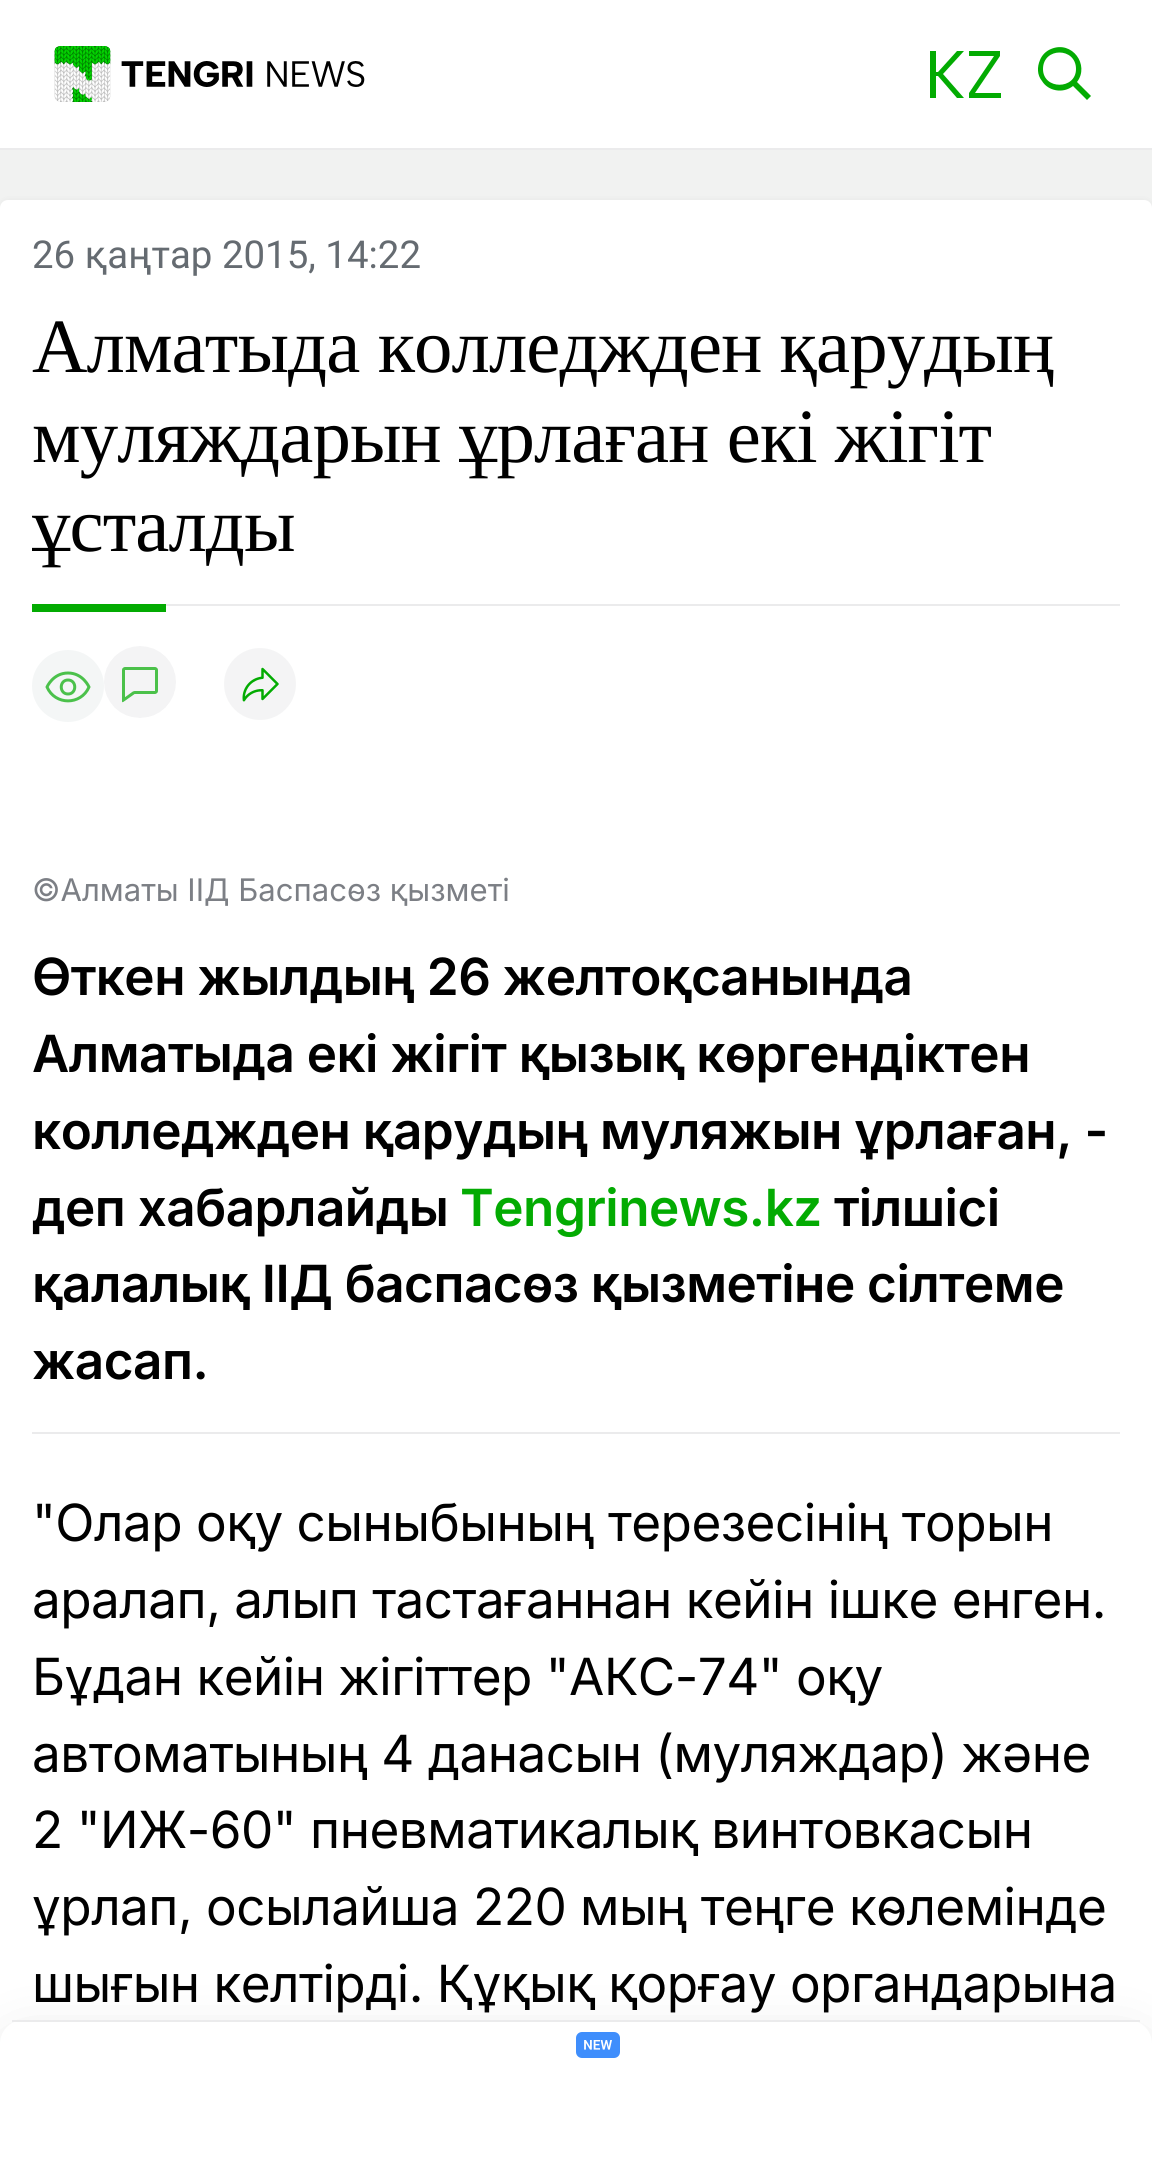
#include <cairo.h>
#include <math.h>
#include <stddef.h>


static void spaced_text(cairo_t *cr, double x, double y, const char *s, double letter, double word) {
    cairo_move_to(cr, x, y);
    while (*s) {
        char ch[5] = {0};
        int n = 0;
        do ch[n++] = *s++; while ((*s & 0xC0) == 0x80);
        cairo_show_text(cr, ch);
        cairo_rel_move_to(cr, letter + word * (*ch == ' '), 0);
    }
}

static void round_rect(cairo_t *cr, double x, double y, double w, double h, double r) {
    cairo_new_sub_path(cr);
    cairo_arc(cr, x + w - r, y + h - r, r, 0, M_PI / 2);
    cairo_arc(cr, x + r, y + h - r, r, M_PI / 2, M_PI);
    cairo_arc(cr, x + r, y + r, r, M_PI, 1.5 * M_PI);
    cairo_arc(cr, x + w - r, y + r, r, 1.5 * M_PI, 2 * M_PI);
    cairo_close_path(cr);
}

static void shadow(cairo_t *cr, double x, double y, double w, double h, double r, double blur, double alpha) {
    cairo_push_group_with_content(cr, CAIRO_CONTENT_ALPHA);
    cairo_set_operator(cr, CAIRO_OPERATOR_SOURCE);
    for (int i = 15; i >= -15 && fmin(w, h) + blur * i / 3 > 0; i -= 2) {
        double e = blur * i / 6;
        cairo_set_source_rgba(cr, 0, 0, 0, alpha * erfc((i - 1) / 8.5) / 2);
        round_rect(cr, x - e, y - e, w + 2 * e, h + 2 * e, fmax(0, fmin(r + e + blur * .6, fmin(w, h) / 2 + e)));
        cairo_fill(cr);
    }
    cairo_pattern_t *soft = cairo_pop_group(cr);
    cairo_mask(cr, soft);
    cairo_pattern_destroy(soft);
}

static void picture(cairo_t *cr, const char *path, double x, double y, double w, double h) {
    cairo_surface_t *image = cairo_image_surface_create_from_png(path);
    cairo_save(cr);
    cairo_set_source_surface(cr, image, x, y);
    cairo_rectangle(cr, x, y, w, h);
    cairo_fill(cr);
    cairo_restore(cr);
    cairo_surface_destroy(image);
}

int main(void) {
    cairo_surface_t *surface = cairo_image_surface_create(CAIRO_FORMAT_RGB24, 1152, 2158);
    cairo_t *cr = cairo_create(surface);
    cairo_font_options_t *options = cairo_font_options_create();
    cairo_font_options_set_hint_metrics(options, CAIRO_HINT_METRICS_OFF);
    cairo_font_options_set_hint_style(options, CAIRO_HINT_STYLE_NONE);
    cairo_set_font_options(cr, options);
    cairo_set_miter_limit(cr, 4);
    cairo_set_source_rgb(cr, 0.945, 0.949, 0.945);
    cairo_paint(cr);
    cairo_set_source_rgb(cr, 1, 1, 1);
    cairo_rectangle(cr, 0, 0, 1152, 148);
    cairo_fill(cr);
    cairo_set_source_rgb(cr, 0.918, 0.918, 0.925);
    cairo_rectangle(cr, 0, 148, 1152, 2);
    cairo_fill(cr);
    picture(cr, "img1.png", 54, 46, 311, 56);
    cairo_set_source_rgb(cr, 0.012, 0.671, 0.008);
    cairo_new_path(cr);
    cairo_move_to(cr, 936, 51);
    cairo_line_to(cr, 930, 51);
    cairo_line_to(cr, 930, 98);
    cairo_line_to(cr, 936, 98);
    cairo_line_to(cr, 936, 76);
    cairo_line_to(cr, 938, 76);
    cairo_line_to(cr, 957, 98);
    cairo_line_to(cr, 964, 98);
    cairo_line_to(cr, 943, 74);
    cairo_line_to(cr, 964, 51);
    cairo_line_to(cr, 957, 51);
    cairo_line_to(cr, 938, 72);
    cairo_line_to(cr, 936, 72);
    cairo_close_path(cr);
    cairo_fill(cr);
    cairo_new_path(cr);
    cairo_move_to(cr, 975, 93);
    cairo_line_to(cr, 1000, 56);
    cairo_line_to(cr, 1000, 51);
    cairo_line_to(cr, 969, 51);
    cairo_line_to(cr, 969, 56);
    cairo_line_to(cr, 994, 56);
    cairo_line_to(cr, 969, 93);
    cairo_line_to(cr, 969, 98);
    cairo_line_to(cr, 1001, 98);
    cairo_line_to(cr, 1001, 93);
    cairo_close_path(cr);
    cairo_fill(cr);
    cairo_set_fill_rule(cr, CAIRO_FILL_RULE_EVEN_ODD);
    cairo_new_path(cr);
    cairo_move_to(cr, 1076, 69);
    cairo_curve_to(cr, 1076, 90, 1043, 90, 1043, 69);
    cairo_curve_to(cr, 1043, 47, 1076, 47, 1076, 69);
    cairo_close_path(cr);
    cairo_move_to(cr, 1073, 86);
    cairo_curve_to(cr, 1063, 94, 1048, 91, 1042, 81);
    cairo_curve_to(cr, 1037, 75, 1037, 67, 1040, 60);
    cairo_curve_to(cr, 1042, 55, 1046, 51, 1051, 49);
    cairo_curve_to(cr, 1072, 40, 1090, 65, 1077, 82);
    cairo_line_to(cr, 1091, 96);
    cairo_line_to(cr, 1087, 100);
    cairo_close_path(cr);
    cairo_fill(cr);
    cairo_set_source_rgb(cr, 0, 0, 0);
    shadow(cr, 0, 200, 1152, 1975, 8, 3, 0.05);
    cairo_set_source_rgb(cr, 1, 1, 1);
    cairo_new_path(cr);
    cairo_move_to(cr, 8, 200);
    cairo_line_to(cr, 1144, 200);
    cairo_curve_to(cr, 1148.5, 200, 1152, 203.5, 1152, 208);
    cairo_line_to(cr, 1152, 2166);
    cairo_line_to(cr, 0, 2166);
    cairo_line_to(cr, 0, 208);
    cairo_curve_to(cr, 0, 203.5, 3.5, 200, 8, 200);
    cairo_close_path(cr);
    cairo_fill(cr);
    cairo_select_font_face(cr, "Roboto", CAIRO_FONT_SLANT_NORMAL, CAIRO_FONT_WEIGHT_NORMAL);
    cairo_set_font_size(cr, 38.4);
    cairo_set_source_rgb(cr, 0.396, 0.42, 0.443);
    cairo_move_to(cr, 32, 268);
    cairo_show_text(cr, "26 қаңтар 2015, 14:22");
    cairo_set_source_rgb(cr, 0.918, 0.918, 0.925);
    cairo_rectangle(cr, 166, 604, 954, 2);
    cairo_fill(cr);
    cairo_select_font_face(cr, "Liberation Serif", CAIRO_FONT_SLANT_NORMAL, CAIRO_FONT_WEIGHT_NORMAL);
    cairo_set_font_size(cr, 76.75);
    cairo_set_source_rgb(cr, 0, 0, 0);
    spaced_text(cr, 32, 372, "Алматыда колледжден қарудың", -0.9, 0);
    spaced_text(cr, 32, 462, "муляждарын ұрлаған екі жігіт", -0.9, 0);
    spaced_text(cr, 32, 551, "ұсталды", -0.9, 0);
    cairo_set_source_rgb(cr, 0.012, 0.671, 0.008);
    cairo_rectangle(cr, 32, 604, 134, 8);
    cairo_fill(cr);
    cairo_set_source_rgb(cr, 0.957, 0.961, 0.961);
    cairo_arc(cr, 68, 686, 36, 0, 2 * M_PI);
    cairo_fill(cr);
    cairo_new_path(cr);
    cairo_move_to(cr, 68, 673);
    cairo_curve_to(cr, 53, 673, 47, 687, 47, 687);
    cairo_curve_to(cr, 55, 705.5, 81, 705.5, 89, 687);
    cairo_curve_to(cr, 89, 687, 83, 673, 68, 673);
    cairo_close_path(cr);
    cairo_move_to(cr, 68, 694);
    cairo_curve_to(cr, 77, 694, 77, 680, 68, 680);
    cairo_curve_to(cr, 59, 680, 59, 694, 68, 694);
    cairo_close_path(cr);
    cairo_set_source_rgb(cr, 0.294, 0.757, 0.294);
    cairo_set_line_width(cr, 3);
    cairo_set_line_cap(cr, CAIRO_LINE_CAP_ROUND);
    cairo_set_line_join(cr, CAIRO_LINE_JOIN_ROUND);
    cairo_stroke(cr);
    picture(cr, "img2.png", 104, 646, 72, 72);
    picture(cr, "img3.png", 224, 648, 72, 72);
    cairo_select_font_face(cr, "Inter", CAIRO_FONT_SLANT_NORMAL, CAIRO_FONT_WEIGHT_NORMAL);
    cairo_set_font_size(cr, 31.1);
    cairo_set_source_rgb(cr, 0.486, 0.498, 0.522);
    cairo_move_to(cr, 32, 901);
    cairo_show_text(cr, "©Алматы ІІД Баспасөз қызметі");
    cairo_set_source_rgb(cr, 0.918, 0.918, 0.925);
    cairo_rectangle(cr, 32, 1432, 1088, 2);
    cairo_fill(cr);
    cairo_select_font_face(cr, "Inter SemiBold", CAIRO_FONT_SLANT_NORMAL, CAIRO_FONT_WEIGHT_NORMAL);
    cairo_set_font_size(cr, 51.2);
    cairo_set_source_rgb(cr, 0, 0, 0);
    spaced_text(cr, 32, 995, "Өткен жылдың 26 желтоқсанында", -0.5, 0);
    spaced_text(cr, 32, 1072, "Алматыда екі жігіт қызық көргендіктен", -0.5, 0);
    spaced_text(cr, 32, 1149, "колледжден қарудың муляжын ұрлаған, -", -0.5, 0);
    spaced_text(cr, 32, 1226, "деп хабарлайды", -0.5, 0);
    cairo_set_source_rgb(cr, 0.012, 0.671, 0.008);
    spaced_text(cr, 460, 1226, "Tengrinews.kz", -0.5, 0);
    cairo_set_source_rgb(cr, 0, 0, 0);
    spaced_text(cr, 834, 1226, "тілшісі", -0.5, 0);
    spaced_text(cr, 32, 1302, "қалалық ІІД баспасөз қызметіне сілтеме", -0.5, 0);
    spaced_text(cr, 32, 1379, "жасап.", -0.5, 0);
    cairo_select_font_face(cr, "Inter", CAIRO_FONT_SLANT_NORMAL, CAIRO_FONT_WEIGHT_NORMAL);
    spaced_text(cr, 32, 1541, "\"Олар оқу сыныбының терезесінің торын", -0.5, 0);
    spaced_text(cr, 32, 1618, "аралап, алып тастағаннан кейін ішке енген.", -0.5, 0);
    spaced_text(cr, 32, 1695, "Бұдан кейін жігіттер \"АКС-74\" оқу", -0.5, 0);
    spaced_text(cr, 32, 1772, "автоматының 4 данасын (муляждар) және", -0.5, 0);
    spaced_text(cr, 32, 1848, "2 \"ИЖ-60\" пневматикалық винтовкасын", -0.5, 0);
    spaced_text(cr, 32, 1925, "ұрлап, осылайша 220 мың теңге көлемінде", -0.5, 0);
    spaced_text(cr, 32, 2002, "шығын келтірді. Құқық қорғау органдарына", -0.5, 0);
    cairo_set_source_rgb(cr, 0, 0, 0);
    shadow(cr, 0, 2040, 1152, 118, 24, 30, 0.12);
    cairo_set_source_rgb(cr, 1, 1, 1);
    cairo_new_path(cr);
    cairo_move_to(cr, 24, 2020);
    cairo_line_to(cr, 1128, 2020);
    cairo_curve_to(cr, 1141.5, 2020, 1152, 2030.5, 1152, 2044);
    cairo_line_to(cr, 1152, 2158);
    cairo_line_to(cr, 0, 2158);
    cairo_line_to(cr, 0, 2044);
    cairo_curve_to(cr, 0, 2030.5, 10.5, 2020, 24, 2020);
    cairo_close_path(cr);
    cairo_fill(cr);
    cairo_set_source_rgb(cr, 0.918, 0.918, 0.925);
    cairo_rectangle(cr, 12, 2020, 1128, 2);
    cairo_fill(cr);
    cairo_set_source_rgb(cr, 0.247, 0.557, 0.988);
    round_rect(cr, 576, 2032, 44, 26, 6);
    cairo_fill(cr);
    picture(cr, "img4.png", 584, 2040, 28, 10);
    cairo_surface_write_to_png(surface, "page.png");
    cairo_font_options_destroy(options);
    cairo_destroy(cr);
    cairo_surface_destroy(surface);
    return 0;
}
